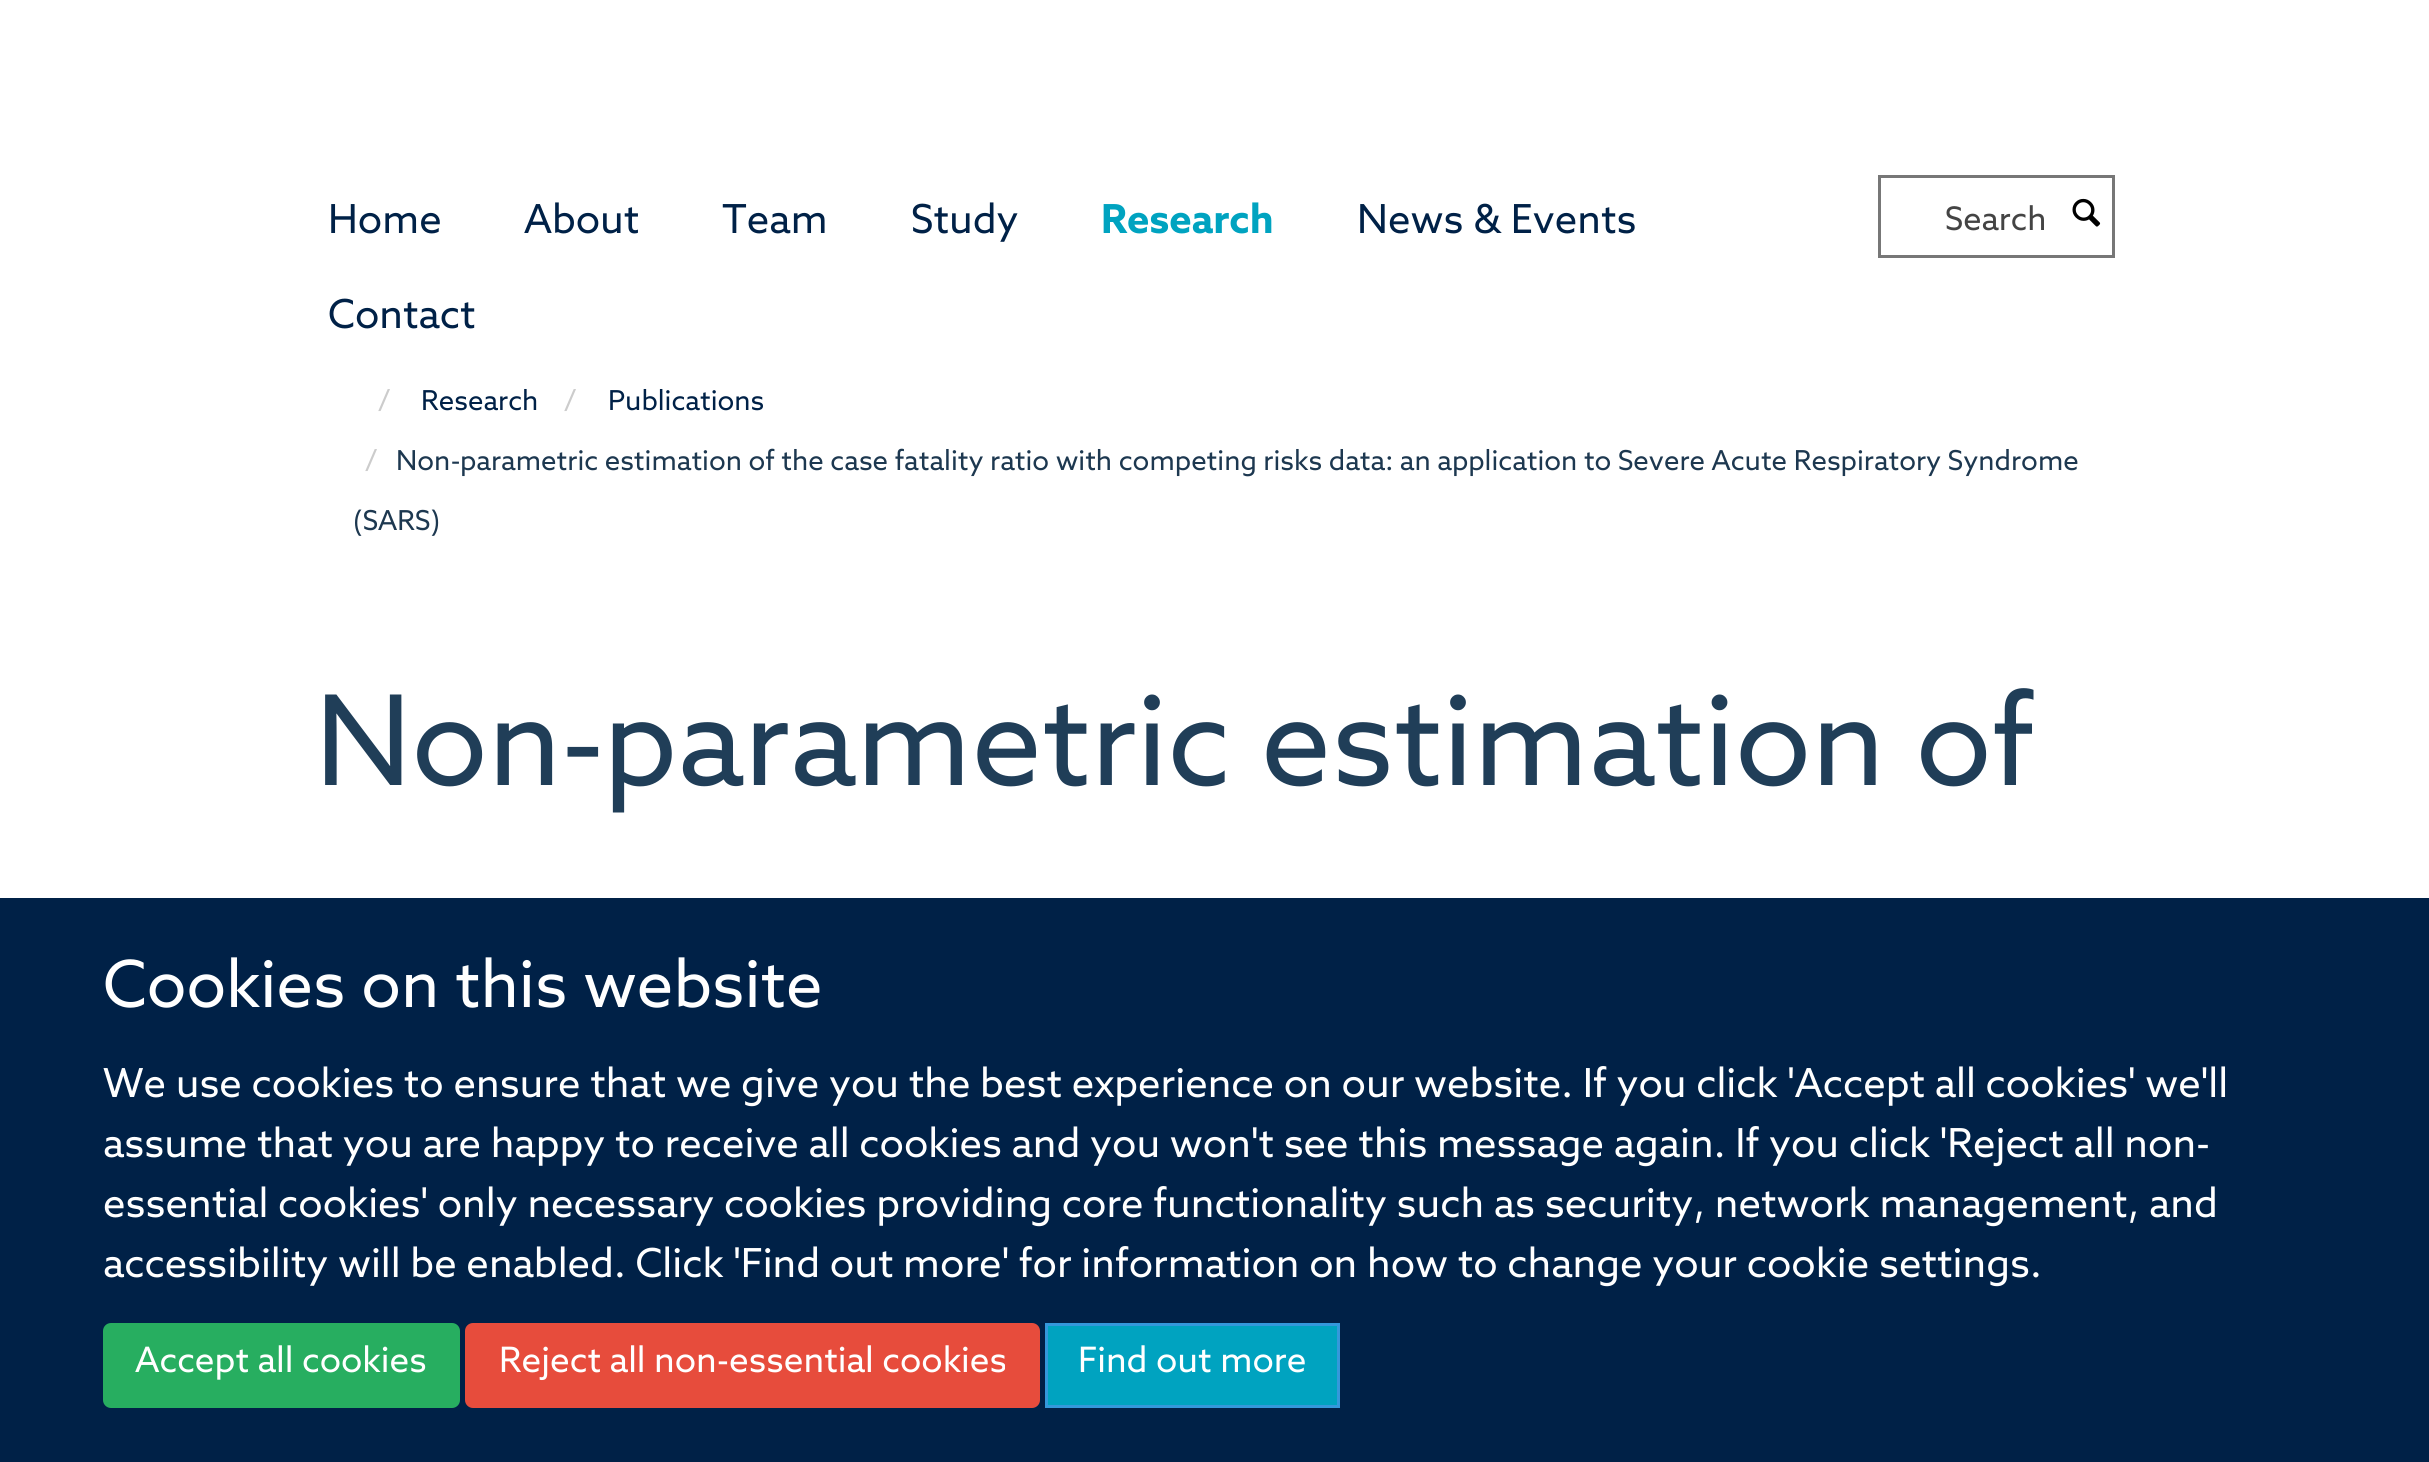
#include <cairo.h>
#include <math.h>
#include <stddef.h>


static void spaced_text(cairo_t *cr, double x, double y, const char *s, double letter, double word) {
    cairo_move_to(cr, x, y);
    while (*s) {
        char ch[5] = {0};
        int n = 0;
        do ch[n++] = *s++; while ((*s & 0xC0) == 0x80);
        cairo_show_text(cr, ch);
        cairo_rel_move_to(cr, letter + word * (*ch == ' '), 0);
    }
}

static void round_rect(cairo_t *cr, double x, double y, double w, double h, double r) {
    cairo_new_sub_path(cr);
    cairo_arc(cr, x + w - r, y + h - r, r, 0, M_PI / 2);
    cairo_arc(cr, x + r, y + h - r, r, M_PI / 2, M_PI);
    cairo_arc(cr, x + r, y + r, r, M_PI, 1.5 * M_PI);
    cairo_arc(cr, x + w - r, y + r, r, 1.5 * M_PI, 2 * M_PI);
    cairo_close_path(cr);
}

static void picture(cairo_t *cr, const char *path, double x, double y, double w, double h) {
    cairo_surface_t *image = cairo_image_surface_create_from_png(path);
    cairo_save(cr);
    cairo_set_source_surface(cr, image, x, y);
    cairo_rectangle(cr, x, y, w, h);
    cairo_fill(cr);
    cairo_restore(cr);
    cairo_surface_destroy(image);
}

int main(void) {
    cairo_surface_t *surface = cairo_image_surface_create(CAIRO_FORMAT_RGB24, 2429, 1462);
    cairo_t *cr = cairo_create(surface);
    cairo_font_options_t *options = cairo_font_options_create();
    cairo_font_options_set_hint_metrics(options, CAIRO_HINT_METRICS_OFF);
    cairo_font_options_set_hint_style(options, CAIRO_HINT_STYLE_NONE);
    cairo_set_font_options(cr, options);
    cairo_set_miter_limit(cr, 4);
    cairo_set_source_rgb(cr, 1, 1, 1);
    cairo_paint(cr);
    cairo_select_font_face(cr, "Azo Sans", CAIRO_FONT_SLANT_NORMAL, CAIRO_FONT_WEIGHT_NORMAL);
    cairo_set_font_size(cr, 40);
    cairo_set_source_rgb(cr, 0, 0.129, 0.278);
    cairo_move_to(cr, 328, 233);
    cairo_show_text(cr, "Home");
    cairo_move_to(cr, 524, 233);
    cairo_show_text(cr, "About");
    cairo_move_to(cr, 722, 233);
    cairo_show_text(cr, "Team");
    cairo_move_to(cr, 911, 233);
    cairo_show_text(cr, "Study");
    cairo_select_font_face(cr, "Azo Sans", CAIRO_FONT_SLANT_NORMAL, CAIRO_FONT_WEIGHT_BOLD);
    cairo_set_source_rgb(cr, 0, 0.639, 0.753);
    cairo_move_to(cr, 1101, 233);
    cairo_show_text(cr, "Research");
    cairo_select_font_face(cr, "Azo Sans", CAIRO_FONT_SLANT_NORMAL, CAIRO_FONT_WEIGHT_NORMAL);
    cairo_set_source_rgb(cr, 0, 0.129, 0.278);
    cairo_move_to(cr, 1357, 233);
    cairo_show_text(cr, "News & Events");
    cairo_move_to(cr, 328, 328);
    cairo_show_text(cr, "Contact");
    cairo_rectangle(cr, 1879.5, 176.5, 234, 80);
    cairo_set_source_rgb(cr, 0.467, 0.467, 0.467);
    cairo_set_line_width(cr, 3);
    cairo_stroke(cr);
    cairo_set_font_size(cr, 32.5);
    cairo_set_source_rgb(cr, 0.267, 0.267, 0.267);
    cairo_move_to(cr, 1945, 230);
    cairo_show_text(cr, "Search");
    picture(cr, "img1.png", 2072, 198, 29, 29);
    cairo_set_font_size(cr, 27.5);
    cairo_set_source_rgb(cr, 0.8, 0.8, 0.8);
    cairo_move_to(cr, 378, 410);
    cairo_show_text(cr, "/");
    cairo_set_source_rgb(cr, 0, 0.129, 0.278);
    cairo_move_to(cr, 421, 410);
    cairo_show_text(cr, "Research");
    cairo_set_source_rgb(cr, 0.8, 0.8, 0.8);
    cairo_move_to(cr, 564, 410);
    cairo_show_text(cr, "/");
    cairo_set_source_rgb(cr, 0, 0.129, 0.278);
    cairo_move_to(cr, 608, 410);
    cairo_show_text(cr, "Publications");
    cairo_set_source_rgb(cr, 0.8, 0.8, 0.8);
    cairo_move_to(cr, 365, 470);
    cairo_show_text(cr, "/");
    cairo_set_source_rgb(cr, 0.114, 0.22, 0.314);
    cairo_move_to(cr, 396, 470);
    cairo_show_text(cr, "Non");
    cairo_select_font_face(cr, "Liberation Sans", CAIRO_FONT_SLANT_NORMAL, CAIRO_FONT_WEIGHT_NORMAL);
    cairo_move_to(cr, 451, 470);
    cairo_show_text(cr, "‐");
    cairo_select_font_face(cr, "Azo Sans", CAIRO_FONT_SLANT_NORMAL, CAIRO_FONT_WEIGHT_NORMAL);
    spaced_text(cr, 460, 470, "parametric estimation of the case fatality ratio with competing risks data: an application to Severe Acute Respiratory Syndrome", 0, -0.1);
    cairo_move_to(cr, 353, 530);
    cairo_show_text(cr, "(SARS)");
    cairo_set_font_size(cr, 125);
    cairo_set_source_rgb(cr, 0.125, 0.243, 0.345);
    cairo_move_to(cr, 315, 785);
    cairo_show_text(cr, "Non");
    cairo_select_font_face(cr, "Liberation Sans", CAIRO_FONT_SLANT_NORMAL, CAIRO_FONT_WEIGHT_NORMAL);
    cairo_move_to(cr, 562, 785);
    cairo_show_text(cr, "‐");
    cairo_select_font_face(cr, "Azo Sans", CAIRO_FONT_SLANT_NORMAL, CAIRO_FONT_WEIGHT_NORMAL);
    cairo_move_to(cr, 603, 785);
    cairo_show_text(cr, "parametric estimation of");
    cairo_set_source_rgb(cr, 0, 0.129, 0.278);
    cairo_rectangle(cr, 0, 898, 2429, 564);
    cairo_fill(cr);
    cairo_set_font_size(cr, 65);
    cairo_set_source_rgb(cr, 1, 1, 1);
    cairo_move_to(cr, 103, 1007);
    cairo_show_text(cr, "Cookies on this website");
    cairo_set_font_size(cr, 40);
    cairo_move_to(cr, 103, 1097);
    cairo_show_text(cr, "We use cookies to ensure that we give you the best experience on our website. If you click 'Accept all cookies' we'll");
    cairo_move_to(cr, 103, 1157);
    cairo_show_text(cr, "assume that you are happy to receive all cookies and you won't see this message again. If you click 'Reject all non-");
    cairo_move_to(cr, 103, 1217);
    cairo_show_text(cr, "essential cookies' only necessary cookies providing core functionality such as security, network management, and");
    cairo_move_to(cr, 103, 1277);
    cairo_show_text(cr, "accessibility will be enabled. Click 'Find out more' for information on how to change your cookie settings.");
    cairo_set_source_rgb(cr, 0.153, 0.682, 0.376);
    round_rect(cr, 104.5, 1324.5, 354, 82, 6.5);
    cairo_fill_preserve(cr);
    cairo_stroke(cr);
    cairo_set_font_size(cr, 35);
    cairo_set_source_rgb(cr, 1, 1, 1);
    cairo_move_to(cr, 135, 1372);
    cairo_show_text(cr, "Accept all cookies");
    cairo_set_source_rgb(cr, 0.906, 0.298, 0.235);
    round_rect(cr, 466.5, 1324.5, 572, 82, 6.5);
    cairo_fill_preserve(cr);
    cairo_stroke(cr);
    cairo_set_source_rgb(cr, 1, 1, 1);
    cairo_move_to(cr, 499, 1372);
    cairo_show_text(cr, "Reject all non-essential cookies");
    cairo_set_source_rgb(cr, 0, 0.639, 0.753);
    cairo_rectangle(cr, 1046.5, 1324.5, 292, 82);
    cairo_fill_preserve(cr);
    cairo_set_source_rgb(cr, 0.204, 0.596, 0.859);
    cairo_stroke(cr);
    cairo_set_source_rgb(cr, 1, 1, 1);
    cairo_move_to(cr, 1078, 1372);
    cairo_show_text(cr, "Find out more");
    cairo_surface_write_to_png(surface, "page.png");
    cairo_font_options_destroy(options);
    cairo_destroy(cr);
    cairo_surface_destroy(surface);
    return 0;
}
